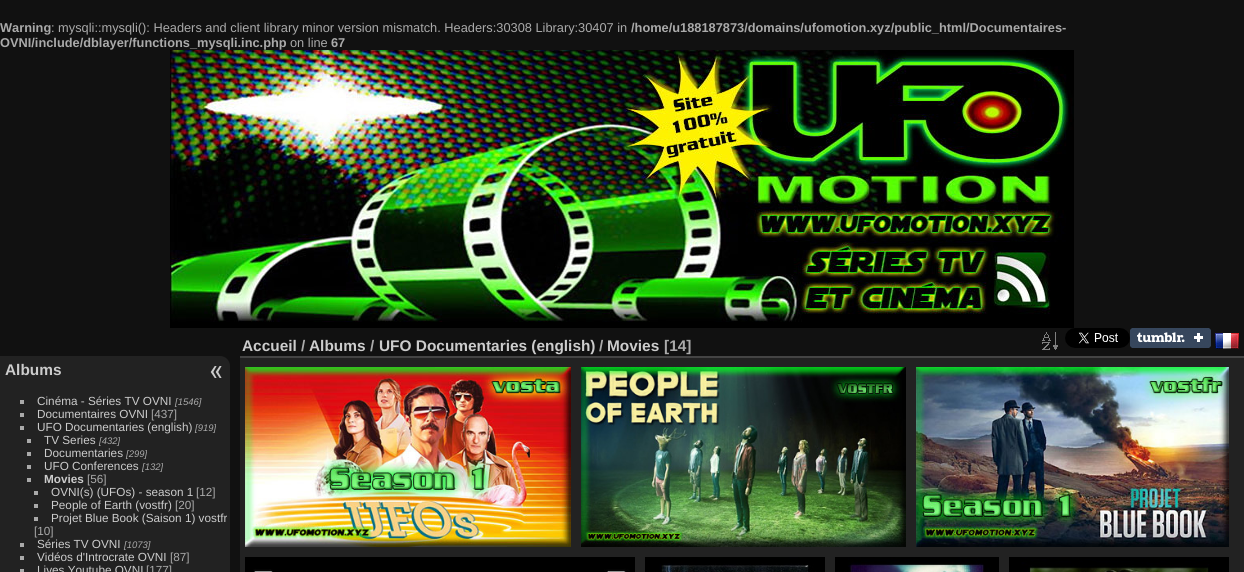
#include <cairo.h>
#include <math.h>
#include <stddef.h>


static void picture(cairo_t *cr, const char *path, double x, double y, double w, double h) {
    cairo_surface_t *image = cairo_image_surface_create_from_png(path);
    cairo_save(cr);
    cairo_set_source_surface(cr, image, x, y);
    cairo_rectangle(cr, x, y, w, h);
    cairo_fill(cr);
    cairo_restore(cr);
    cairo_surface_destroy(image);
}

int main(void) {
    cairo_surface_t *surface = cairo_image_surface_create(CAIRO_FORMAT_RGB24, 1244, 572);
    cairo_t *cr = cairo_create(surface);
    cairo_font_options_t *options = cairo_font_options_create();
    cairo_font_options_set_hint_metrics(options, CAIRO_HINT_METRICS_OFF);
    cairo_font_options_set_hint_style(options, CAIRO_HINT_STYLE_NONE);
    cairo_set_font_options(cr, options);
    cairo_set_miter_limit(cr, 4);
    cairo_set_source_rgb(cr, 0.067, 0.067, 0.067);
    cairo_paint(cr);
    cairo_select_font_face(cr, "Liberation Sans", CAIRO_FONT_SLANT_NORMAL, CAIRO_FONT_WEIGHT_BOLD);
    cairo_set_font_size(cr, 12.8);
    cairo_set_source_rgb(cr, 0.667, 0.667, 0.667);
    cairo_move_to(cr, 0, 32);
    cairo_show_text(cr, "Warning");
    cairo_select_font_face(cr, "Liberation Sans", CAIRO_FONT_SLANT_NORMAL, CAIRO_FONT_WEIGHT_NORMAL);
    cairo_move_to(cr, 51, 32);
    cairo_show_text(cr, ": mysqli::mysqli(): Headers and client library minor version mismatch. Headers:30308 Library:30407 in");
    cairo_select_font_face(cr, "Liberation Sans", CAIRO_FONT_SLANT_NORMAL, CAIRO_FONT_WEIGHT_BOLD);
    cairo_move_to(cr, 631, 32);
    cairo_show_text(cr, "/home/u188187873/domains/ufomotion.xyz/public_html/Documentaires-");
    cairo_move_to(cr, 0, 47);
    cairo_show_text(cr, "OVNI/include/dblayer/functions_mysqli.inc.php");
    cairo_select_font_face(cr, "Liberation Sans", CAIRO_FONT_SLANT_NORMAL, CAIRO_FONT_WEIGHT_NORMAL);
    cairo_move_to(cr, 290, 47);
    cairo_show_text(cr, "on line");
    cairo_select_font_face(cr, "Liberation Sans", CAIRO_FONT_SLANT_NORMAL, CAIRO_FONT_WEIGHT_BOLD);
    cairo_move_to(cr, 331, 47);
    cairo_show_text(cr, "67");
    picture(cr, "img1.png", 170, 50, 904, 278);
    cairo_set_source_rgb(cr, 0.133, 0.133, 0.133);
    cairo_rectangle(cr, 240, 358, 1004, 214);
    cairo_fill(cr);
    cairo_set_source_rgb(cr, 0.267, 0.267, 0.267);
    cairo_rectangle(cr, 240, 356, 1004, 2);
    cairo_fill(cr);
    cairo_set_font_size(cr, 15.4);
    cairo_set_source_rgb(cr, 0.8, 0.8, 0.8);
    cairo_move_to(cr, 242, 351);
    cairo_show_text(cr, "Accueil");
    cairo_set_source_rgb(cr, 0.667, 0.667, 0.667);
    cairo_move_to(cr, 301, 351);
    cairo_show_text(cr, "/");
    cairo_set_source_rgb(cr, 0.8, 0.8, 0.8);
    cairo_move_to(cr, 309, 351);
    cairo_show_text(cr, "Albums");
    cairo_set_source_rgb(cr, 0.667, 0.667, 0.667);
    cairo_move_to(cr, 370, 351);
    cairo_show_text(cr, "/");
    cairo_set_source_rgb(cr, 0.8, 0.8, 0.8);
    cairo_move_to(cr, 379, 351);
    cairo_show_text(cr, "UFO Documentaries (english)");
    cairo_set_source_rgb(cr, 0.667, 0.667, 0.667);
    cairo_move_to(cr, 599, 351);
    cairo_show_text(cr, "/");
    cairo_set_source_rgb(cr, 0.8, 0.8, 0.8);
    cairo_move_to(cr, 607, 351);
    cairo_show_text(cr, "Movies");
    cairo_set_source_rgb(cr, 0.667, 0.667, 0.667);
    cairo_move_to(cr, 664, 351);
    cairo_show_text(cr, "[14]");
    picture(cr, "img2.png", 1042, 332, 16, 18);
    picture(cr, "img3.png", 1065, 328, 65, 20);
    picture(cr, "img4.png", 1130, 328, 81, 20);
    picture(cr, "img5.png", 1215, 333, 24, 16);
    picture(cr, "img6.png", 245, 367, 326, 180);
    picture(cr, "img7.png", 581, 367, 325, 180);
    picture(cr, "img8.png", 916, 367, 313, 180);
    picture(cr, "img9.png", 245, 557, 390, 15);
    picture(cr, "img10.png", 645, 557, 180, 15);
    picture(cr, "img11.png", 835, 557, 164, 15);
    picture(cr, "img12.png", 1009, 557, 220, 15);
    cairo_set_source_rgb(cr, 0.133, 0.133, 0.133);
    cairo_new_path(cr);
    cairo_move_to(cr, 0, 356);
    cairo_line_to(cr, 220, 356);
    cairo_curve_to(cr, 225.5, 356, 230, 360.5, 230, 366);
    cairo_line_to(cr, 230, 572);
    cairo_curve_to(cr, 230, 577.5, 225.5, 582, 220, 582);
    cairo_line_to(cr, 0, 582);
    cairo_close_path(cr);
    cairo_fill(cr);
    cairo_set_source_rgb(cr, 0.8, 0.8, 0.8);
    cairo_move_to(cr, 5, 375);
    cairo_show_text(cr, "Albums");
    cairo_set_source_rgb(cr, 0.667, 0.667, 0.667);
    cairo_rectangle(cr, 20, 400, 4, 4);
    cairo_fill(cr);
    cairo_select_font_face(cr, "Liberation Sans", CAIRO_FONT_SLANT_NORMAL, CAIRO_FONT_WEIGHT_NORMAL);
    cairo_set_font_size(cr, 11.75);
    cairo_set_source_rgb(cr, 0.8, 0.8, 0.8);
    cairo_move_to(cr, 37, 405);
    cairo_show_text(cr, "Cinéma - Séries TV OVNI");
    cairo_select_font_face(cr, "Liberation Sans", CAIRO_FONT_SLANT_ITALIC, CAIRO_FONT_WEIGHT_NORMAL);
    cairo_set_font_size(cr, 9.5);
    cairo_set_source_rgb(cr, 0.667, 0.667, 0.667);
    cairo_move_to(cr, 175, 405);
    cairo_show_text(cr, "[1546]");
    cairo_rectangle(cr, 20, 413, 4, 4);
    cairo_fill(cr);
    cairo_select_font_face(cr, "Liberation Sans", CAIRO_FONT_SLANT_NORMAL, CAIRO_FONT_WEIGHT_NORMAL);
    cairo_set_font_size(cr, 11.75);
    cairo_set_source_rgb(cr, 0.8, 0.8, 0.8);
    cairo_move_to(cr, 37, 418);
    cairo_show_text(cr, "Documentaires OVNI");
    cairo_set_source_rgb(cr, 0.667, 0.667, 0.667);
    cairo_move_to(cr, 151, 418);
    cairo_show_text(cr, "[437]");
    cairo_rectangle(cr, 20, 426, 4, 4);
    cairo_fill(cr);
    cairo_set_source_rgb(cr, 0.8, 0.8, 0.8);
    cairo_move_to(cr, 37, 431);
    cairo_show_text(cr, "UFO Documentaries (english)");
    cairo_select_font_face(cr, "Liberation Sans", CAIRO_FONT_SLANT_ITALIC, CAIRO_FONT_WEIGHT_NORMAL);
    cairo_set_font_size(cr, 9.5);
    cairo_set_source_rgb(cr, 0.667, 0.667, 0.667);
    cairo_move_to(cr, 195, 431);
    cairo_show_text(cr, "[919]");
    cairo_rectangle(cr, 27, 439, 4, 4);
    cairo_fill(cr);
    cairo_select_font_face(cr, "Liberation Sans", CAIRO_FONT_SLANT_NORMAL, CAIRO_FONT_WEIGHT_NORMAL);
    cairo_set_font_size(cr, 11.75);
    cairo_set_source_rgb(cr, 0.8, 0.8, 0.8);
    cairo_move_to(cr, 44, 444);
    cairo_show_text(cr, "TV Series");
    cairo_select_font_face(cr, "Liberation Sans", CAIRO_FONT_SLANT_ITALIC, CAIRO_FONT_WEIGHT_NORMAL);
    cairo_set_font_size(cr, 9.5);
    cairo_set_source_rgb(cr, 0.667, 0.667, 0.667);
    cairo_move_to(cr, 99, 444);
    cairo_show_text(cr, "[432]");
    cairo_rectangle(cr, 27, 452, 4, 4);
    cairo_fill(cr);
    cairo_select_font_face(cr, "Liberation Sans", CAIRO_FONT_SLANT_NORMAL, CAIRO_FONT_WEIGHT_NORMAL);
    cairo_set_font_size(cr, 11.75);
    cairo_set_source_rgb(cr, 0.8, 0.8, 0.8);
    cairo_move_to(cr, 44, 457);
    cairo_show_text(cr, "Documentaries");
    cairo_select_font_face(cr, "Liberation Sans", CAIRO_FONT_SLANT_ITALIC, CAIRO_FONT_WEIGHT_NORMAL);
    cairo_set_font_size(cr, 9.5);
    cairo_set_source_rgb(cr, 0.667, 0.667, 0.667);
    cairo_move_to(cr, 126, 457);
    cairo_show_text(cr, "[299]");
    cairo_rectangle(cr, 27, 465, 4, 4);
    cairo_fill(cr);
    cairo_select_font_face(cr, "Liberation Sans", CAIRO_FONT_SLANT_NORMAL, CAIRO_FONT_WEIGHT_NORMAL);
    cairo_set_font_size(cr, 11.75);
    cairo_set_source_rgb(cr, 0.8, 0.8, 0.8);
    cairo_move_to(cr, 44, 470);
    cairo_show_text(cr, "UFO Conferences");
    cairo_select_font_face(cr, "Liberation Sans", CAIRO_FONT_SLANT_ITALIC, CAIRO_FONT_WEIGHT_NORMAL);
    cairo_set_font_size(cr, 9.5);
    cairo_set_source_rgb(cr, 0.667, 0.667, 0.667);
    cairo_move_to(cr, 142, 470);
    cairo_show_text(cr, "[132]");
    cairo_rectangle(cr, 27, 478, 4, 4);
    cairo_fill(cr);
    cairo_select_font_face(cr, "Liberation Sans", CAIRO_FONT_SLANT_NORMAL, CAIRO_FONT_WEIGHT_BOLD);
    cairo_set_font_size(cr, 11.75);
    cairo_set_source_rgb(cr, 0.8, 0.8, 0.8);
    cairo_move_to(cr, 44, 483);
    cairo_show_text(cr, "Movies");
    cairo_select_font_face(cr, "Liberation Sans", CAIRO_FONT_SLANT_NORMAL, CAIRO_FONT_WEIGHT_NORMAL);
    cairo_set_source_rgb(cr, 0.667, 0.667, 0.667);
    cairo_move_to(cr, 87, 483);
    cairo_show_text(cr, "[56]");
    cairo_rectangle(cr, 34, 491, 4, 4);
    cairo_fill(cr);
    cairo_set_source_rgb(cr, 0.8, 0.8, 0.8);
    cairo_move_to(cr, 51, 496);
    cairo_show_text(cr, "OVNI(s) (UFOs) - season 1");
    cairo_set_source_rgb(cr, 0.667, 0.667, 0.667);
    cairo_move_to(cr, 196, 496);
    cairo_show_text(cr, "[12]");
    cairo_rectangle(cr, 34, 504, 4, 4);
    cairo_fill(cr);
    cairo_set_source_rgb(cr, 0.8, 0.8, 0.8);
    cairo_move_to(cr, 51, 509);
    cairo_show_text(cr, "People of Earth (vostfr)");
    cairo_set_source_rgb(cr, 0.667, 0.667, 0.667);
    cairo_move_to(cr, 175, 509);
    cairo_show_text(cr, "[20]");
    cairo_rectangle(cr, 34, 517, 4, 4);
    cairo_fill(cr);
    cairo_set_source_rgb(cr, 0.8, 0.8, 0.8);
    cairo_move_to(cr, 51, 522);
    cairo_show_text(cr, "Projet Blue Book (Saison 1) vostfr");
    cairo_set_source_rgb(cr, 0.667, 0.667, 0.667);
    cairo_move_to(cr, 34, 535);
    cairo_show_text(cr, "[10]");
    cairo_rectangle(cr, 20, 543, 4, 4);
    cairo_fill(cr);
    cairo_set_source_rgb(cr, 0.8, 0.8, 0.8);
    cairo_move_to(cr, 37, 548);
    cairo_show_text(cr, "Séries TV OVNI");
    cairo_select_font_face(cr, "Liberation Sans", CAIRO_FONT_SLANT_ITALIC, CAIRO_FONT_WEIGHT_NORMAL);
    cairo_set_font_size(cr, 9.5);
    cairo_set_source_rgb(cr, 0.667, 0.667, 0.667);
    cairo_move_to(cr, 124, 548);
    cairo_show_text(cr, "[1073]");
    cairo_rectangle(cr, 20, 556, 4, 4);
    cairo_fill(cr);
    cairo_select_font_face(cr, "Liberation Sans", CAIRO_FONT_SLANT_NORMAL, CAIRO_FONT_WEIGHT_NORMAL);
    cairo_set_font_size(cr, 11.75);
    cairo_set_source_rgb(cr, 0.8, 0.8, 0.8);
    cairo_move_to(cr, 37, 561);
    cairo_show_text(cr, "Vidéos d'Introcrate OVNI");
    cairo_set_source_rgb(cr, 0.667, 0.667, 0.667);
    cairo_move_to(cr, 170, 561);
    cairo_show_text(cr, "[87]");
    cairo_rectangle(cr, 20, 569, 4, 3);
    cairo_fill(cr);
    cairo_set_source_rgb(cr, 0.8, 0.8, 0.8);
    cairo_move_to(cr, 37, 574);
    cairo_show_text(cr, "Lives Youtube OVNI");
    cairo_set_source_rgb(cr, 0.667, 0.667, 0.667);
    cairo_move_to(cr, 146, 574);
    cairo_show_text(cr, "[177]");
    picture(cr, "img13.png", 210, 366, 12, 12);
    cairo_surface_write_to_png(surface, "page.png");
    cairo_font_options_destroy(options);
    cairo_destroy(cr);
    cairo_surface_destroy(surface);
    return 0;
}
